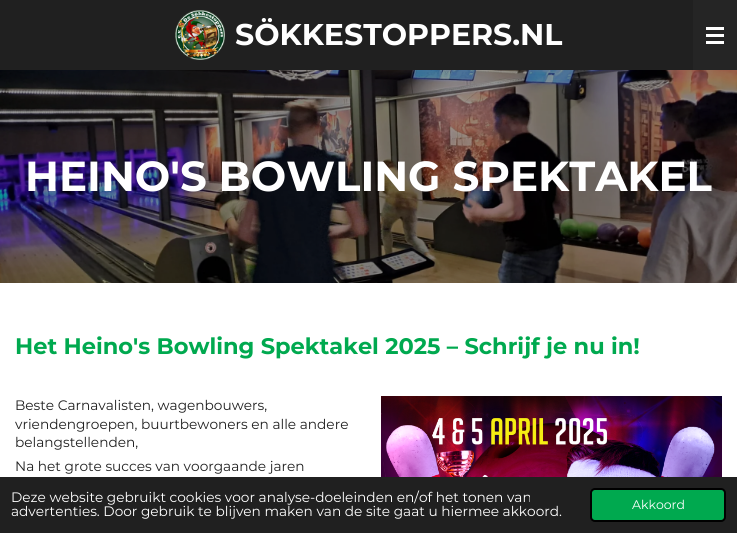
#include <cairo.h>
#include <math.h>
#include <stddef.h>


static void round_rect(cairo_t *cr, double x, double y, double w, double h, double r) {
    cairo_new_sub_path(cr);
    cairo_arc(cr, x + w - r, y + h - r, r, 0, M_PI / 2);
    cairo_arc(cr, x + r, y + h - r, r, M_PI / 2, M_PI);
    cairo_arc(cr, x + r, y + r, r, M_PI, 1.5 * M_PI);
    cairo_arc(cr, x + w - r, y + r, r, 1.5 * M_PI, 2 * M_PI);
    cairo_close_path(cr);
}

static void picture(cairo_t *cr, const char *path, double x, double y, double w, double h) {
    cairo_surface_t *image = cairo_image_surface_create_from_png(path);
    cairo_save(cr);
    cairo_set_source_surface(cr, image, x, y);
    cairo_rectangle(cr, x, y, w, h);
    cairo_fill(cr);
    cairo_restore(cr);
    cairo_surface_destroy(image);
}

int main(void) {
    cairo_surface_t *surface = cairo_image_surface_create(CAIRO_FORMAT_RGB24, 737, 533);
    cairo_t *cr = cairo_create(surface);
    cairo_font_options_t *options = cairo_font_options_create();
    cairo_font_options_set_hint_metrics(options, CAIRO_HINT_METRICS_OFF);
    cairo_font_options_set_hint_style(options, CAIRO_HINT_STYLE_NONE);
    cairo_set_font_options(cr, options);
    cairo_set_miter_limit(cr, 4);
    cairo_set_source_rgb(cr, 0.125, 0.125, 0.125);
    cairo_paint(cr);
    picture(cr, "img1.png", 175, 10, 50, 50);
    cairo_select_font_face(cr, "Montserrat", CAIRO_FONT_SLANT_NORMAL, CAIRO_FONT_WEIGHT_BOLD);
    cairo_set_font_size(cr, 30);
    cairo_set_source_rgb(cr, 1, 1, 1);
    cairo_move_to(cr, 235, 45);
    cairo_show_text(cr, "SÖKKESTOPPERS.NL");
    cairo_set_source_rgb(cr, 0.145, 0.145, 0.145);
    cairo_rectangle(cr, 693, 0, 44, 70);
    cairo_fill(cr);
    cairo_set_source_rgb(cr, 1, 1, 1);
    cairo_rectangle(cr, 706, 34, 18, 3);
    cairo_fill(cr);
    cairo_rectangle(cr, 706, 27, 18, 3);
    cairo_fill(cr);
    cairo_rectangle(cr, 706, 41, 18, 3);
    cairo_fill(cr);
    picture(cr, "img2.png", 0, 70, 737, 213);
    cairo_set_font_size(cr, 42);
    cairo_move_to(cr, 25, 191);
    cairo_show_text(cr, "HEINO'S BOWLING SPEKTAKEL");
    cairo_rectangle(cr, 0, 283, 737, 194);
    cairo_fill(cr);
    cairo_set_font_size(cr, 22.5);
    cairo_set_source_rgb(cr, 0, 0.663, 0.31);
    cairo_move_to(cr, 15, 354);
    cairo_show_text(cr, "Het Heino's Bowling Spektakel 2025 – Schrijf je nu in!");
    cairo_select_font_face(cr, "Montserrat", CAIRO_FONT_SLANT_NORMAL, CAIRO_FONT_WEIGHT_NORMAL);
    cairo_set_font_size(cr, 13.7);
    cairo_set_source_rgb(cr, 0.125, 0.125, 0.125);
    cairo_move_to(cr, 15, 410);
    cairo_show_text(cr, "Beste Carnavalisten, wagenbouwers,");
    cairo_move_to(cr, 15, 429);
    cairo_show_text(cr, "vriendengroepen, buurtbewoners en alle andere");
    cairo_move_to(cr, 15, 447);
    cairo_show_text(cr, "belangstellenden,");
    cairo_move_to(cr, 15, 471);
    cairo_show_text(cr, "Na het grote succes van voorgaande jaren");
    picture(cr, "img3.png", 381, 396, 341, 81);
    cairo_set_source_rgb(cr, 1, 1, 1);
    cairo_move_to(cr, 11, 502);
    cairo_show_text(cr, "Deze website gebruikt cookies voor analyse-doeleinden en/of het tonen van");
    cairo_move_to(cr, 11, 516);
    cairo_show_text(cr, "advertenties. Door gebruik te blijven maken van de site gaat u hiermee akkoord.");
    cairo_set_source_rgb(cr, 0, 0.663, 0.31);
    round_rect(cr, 591, 489, 134, 32, 4);
    cairo_fill_preserve(cr);
    cairo_set_source_rgb(cr, 0, 0, 0);
    cairo_stroke(cr);
    cairo_set_font_size(cr, 12.5);
    cairo_set_source_rgb(cr, 1, 1, 1);
    cairo_move_to(cr, 632, 509);
    cairo_show_text(cr, "Akkoord");
    cairo_surface_write_to_png(surface, "page.png");
    cairo_font_options_destroy(options);
    cairo_destroy(cr);
    cairo_surface_destroy(surface);
    return 0;
}
